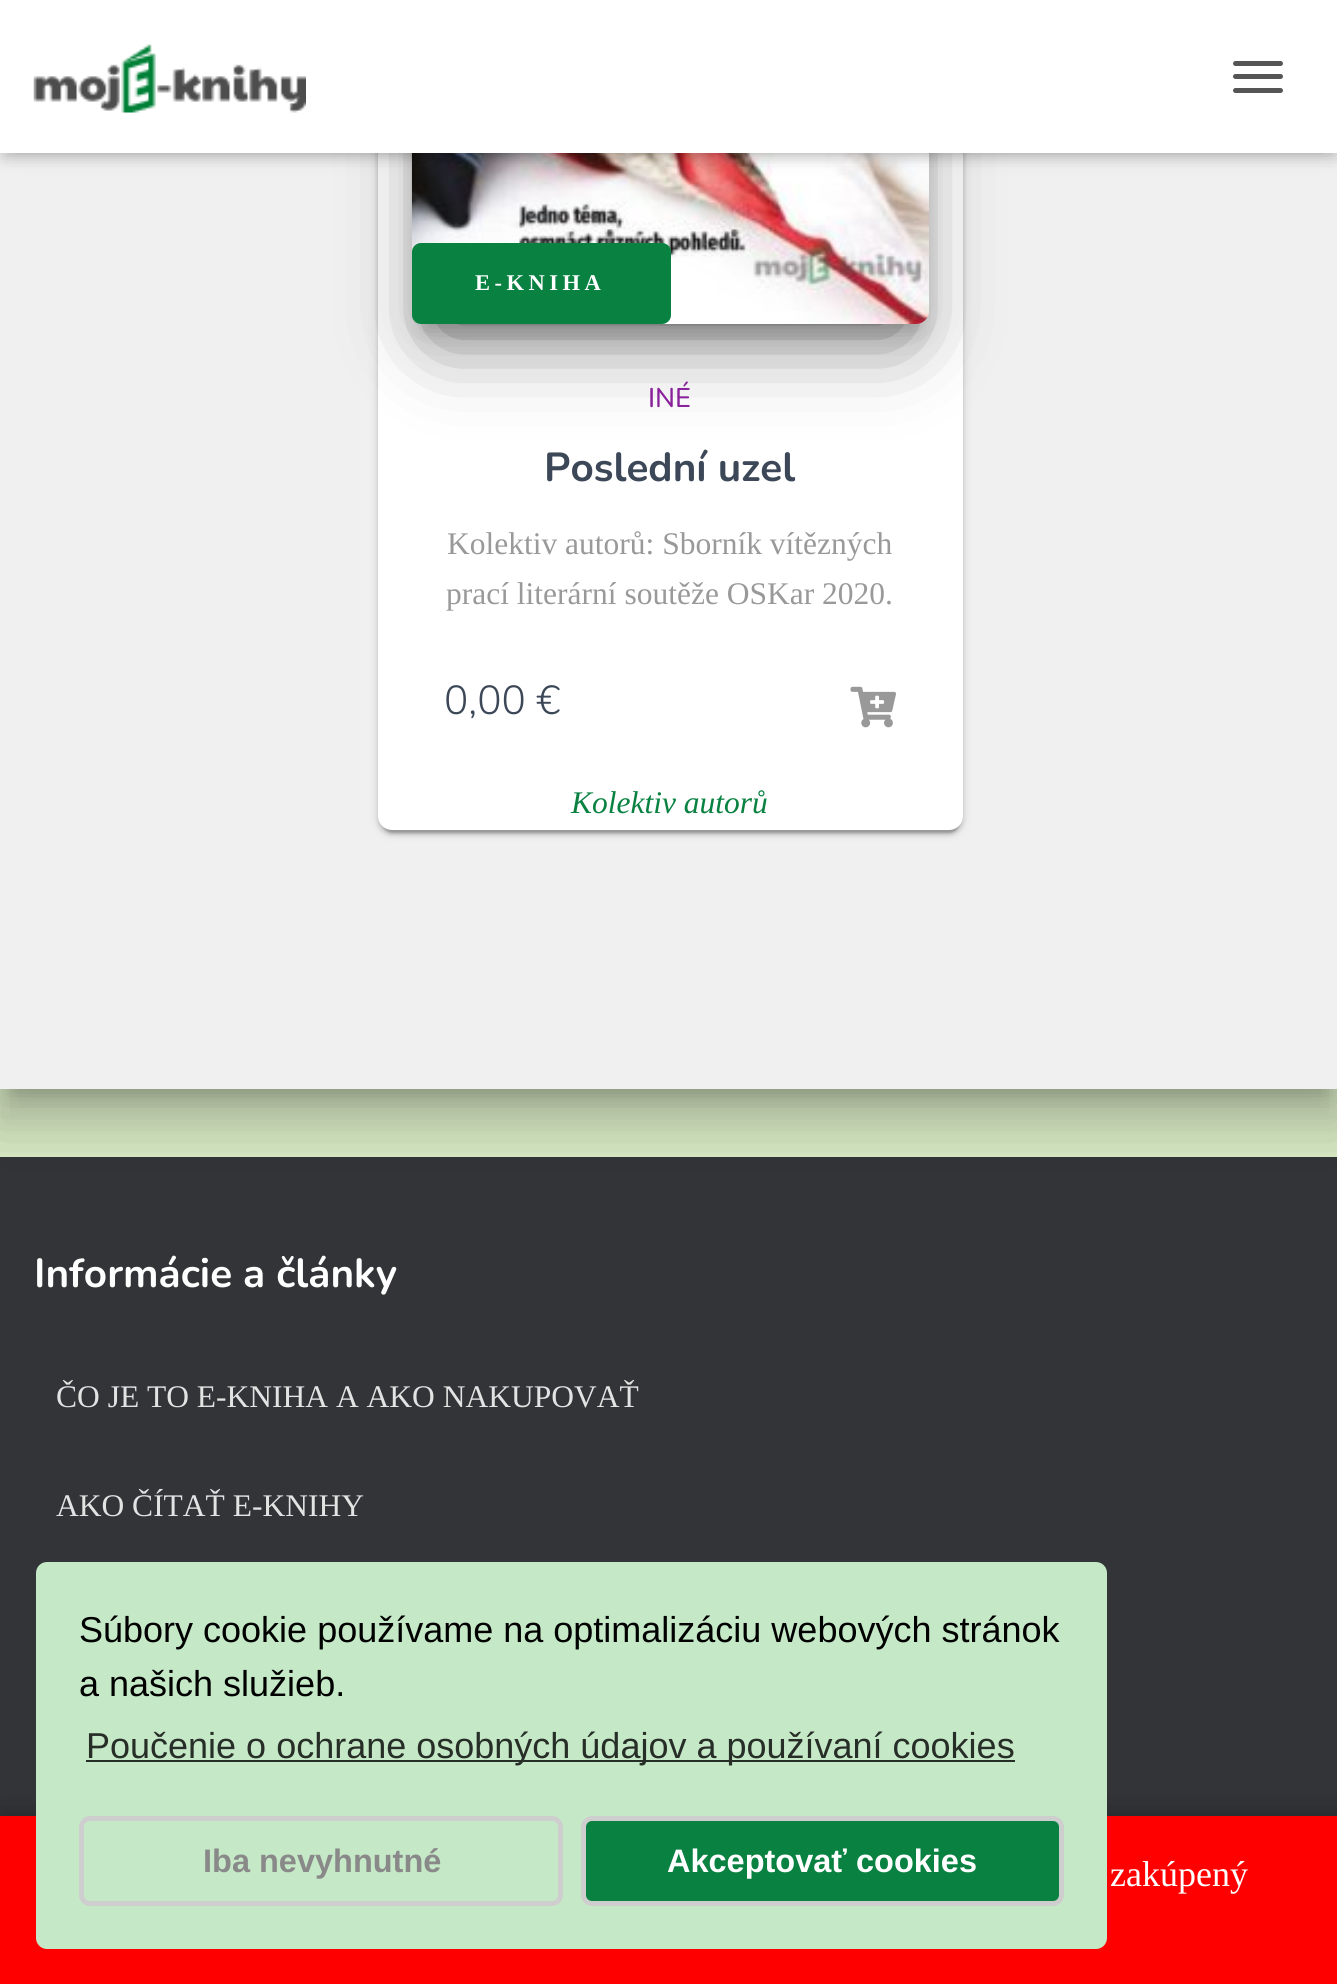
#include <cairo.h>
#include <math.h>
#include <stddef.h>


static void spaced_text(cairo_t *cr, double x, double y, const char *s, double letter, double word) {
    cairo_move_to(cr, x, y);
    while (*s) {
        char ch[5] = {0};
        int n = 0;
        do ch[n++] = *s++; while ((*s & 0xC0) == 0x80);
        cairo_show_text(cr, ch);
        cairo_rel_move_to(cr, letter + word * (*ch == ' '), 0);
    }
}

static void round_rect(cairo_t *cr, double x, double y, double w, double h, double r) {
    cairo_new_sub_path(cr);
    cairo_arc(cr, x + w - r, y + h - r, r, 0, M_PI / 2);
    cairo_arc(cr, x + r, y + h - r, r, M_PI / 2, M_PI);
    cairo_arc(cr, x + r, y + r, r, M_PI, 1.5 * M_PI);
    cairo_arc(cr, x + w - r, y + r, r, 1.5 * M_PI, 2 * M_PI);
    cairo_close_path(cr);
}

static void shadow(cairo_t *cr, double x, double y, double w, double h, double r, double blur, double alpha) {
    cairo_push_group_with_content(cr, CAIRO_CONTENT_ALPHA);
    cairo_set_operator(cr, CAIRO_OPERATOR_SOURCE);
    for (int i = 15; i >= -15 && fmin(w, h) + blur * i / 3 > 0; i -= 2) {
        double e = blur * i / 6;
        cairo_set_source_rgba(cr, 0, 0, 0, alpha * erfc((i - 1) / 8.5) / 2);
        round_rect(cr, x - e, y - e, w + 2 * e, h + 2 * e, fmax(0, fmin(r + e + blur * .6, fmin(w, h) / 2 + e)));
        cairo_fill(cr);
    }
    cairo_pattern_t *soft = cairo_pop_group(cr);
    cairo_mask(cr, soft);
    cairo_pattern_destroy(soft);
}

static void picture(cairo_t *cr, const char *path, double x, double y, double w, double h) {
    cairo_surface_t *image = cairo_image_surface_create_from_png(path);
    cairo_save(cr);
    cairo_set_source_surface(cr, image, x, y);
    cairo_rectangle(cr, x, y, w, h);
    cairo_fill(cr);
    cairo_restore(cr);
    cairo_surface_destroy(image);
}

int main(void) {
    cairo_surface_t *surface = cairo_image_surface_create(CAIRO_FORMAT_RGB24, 1337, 1984);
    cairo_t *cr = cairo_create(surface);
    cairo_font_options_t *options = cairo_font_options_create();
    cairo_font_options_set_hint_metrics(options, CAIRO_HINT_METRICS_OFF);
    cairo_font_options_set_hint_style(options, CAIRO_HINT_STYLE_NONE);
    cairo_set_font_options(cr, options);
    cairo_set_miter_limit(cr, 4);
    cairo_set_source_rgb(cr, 0.851, 0.918, 0.773);
    cairo_paint(cr);
    cairo_set_source_rgb(cr, 0, 0, 0);
    shadow(cr, 11, -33, 1317, 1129, 0, 11, 0.2);
    cairo_set_source_rgb(cr, 0.196, 0.204, 0.216);
    cairo_rectangle(cr, 0, 1157, 1337, 659);
    cairo_fill(cr);
    cairo_set_source_rgb(cr, 0, 0, 0);
    shadow(cr, -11, -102, 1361, 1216, 0, 34, 0.12);
    shadow(cr, -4, -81, 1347, 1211, 0, 27, 0.14);
    cairo_set_source_rgb(cr, 0.941, 0.941, 0.941);
    cairo_rectangle(cr, 0, 153, 1337, 936);
    cairo_fill(cr);
    cairo_set_source_rgb(cr, 0, 0, 0);
    shadow(cr, 378, -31, 585, 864, 14, 5.5, 0.12);
    shadow(cr, 383, -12, 576, 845, 9, 1, 0.2);
    shadow(cr, 378, -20, 585, 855, 14, 2, 0.14);
    cairo_set_source_rgb(cr, 1, 1, 1);
    round_rect(cr, 378, -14, 585, 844, 14);
    cairo_fill(cr);
    cairo_set_source_rgb(cr, 0, 0, 0);
    shadow(cr, 423, -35, 495, 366, 2, 11, 0.2);
    shadow(cr, 412, -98, 517, 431, 14, 28, 0.12);
    shadow(cr, 439, -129, 463, 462, 0, 43, 0.56);
    picture(cr, "img2.png", 411, 153, 518, 171);
    shadow(cr, 5, 14, 1329, 144, 0, 5.5, 0.1);
    shadow(cr, 0, 2, 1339, 153, 0, 11, 0.12);
    shadow(cr, 14, 16, 1311, 126, 0, 11, 0.42);
    cairo_set_source_rgb(cr, 1, 1, 1);
    cairo_rectangle(cr, 0, 0, 1337, 153);
    cairo_fill(cr);
    picture(cr, "img1.png", 33, 44, 273, 69);
    cairo_set_source_rgb(cr, 0.333, 0.333, 0.333);
    round_rect(cr, 1233, 61, 50, 5, 2.5);
    cairo_fill(cr);
    round_rect(cr, 1233, 74, 50, 5, 2.5);
    cairo_fill(cr);
    round_rect(cr, 1233, 88, 50, 5, 2.5);
    cairo_fill(cr);
    cairo_set_source_rgb(cr, 0.035, 0.506, 0.255);
    round_rect(cr, 412, 243, 259, 81, 9);
    cairo_fill(cr);
    cairo_select_font_face(cr, "Liberation Serif", CAIRO_FONT_SLANT_NORMAL, CAIRO_FONT_WEIGHT_BOLD);
    cairo_set_font_size(cr, 22.5);
    cairo_set_source_rgb(cr, 1, 1, 1);
    spaced_text(cr, 475, 290, "E-KNIHA", 4.5, 0);
    cairo_select_font_face(cr, "Nunito Medium", CAIRO_FONT_SLANT_NORMAL, CAIRO_FONT_WEIGHT_NORMAL);
    cairo_set_font_size(cr, 27);
    cairo_set_source_rgb(cr, 0.537, 0.133, 0.608);
    cairo_move_to(cr, 648, 407);
    cairo_show_text(cr, "INÉ");
    cairo_select_font_face(cr, "Nunito", CAIRO_FONT_SLANT_NORMAL, CAIRO_FONT_WEIGHT_BOLD);
    cairo_set_font_size(cr, 40.5);
    cairo_set_source_rgb(cr, 0.235, 0.282, 0.345);
    cairo_move_to(cr, 544, 481);
    cairo_show_text(cr, "Poslední uzel");
    cairo_select_font_face(cr, "Liberation Serif", CAIRO_FONT_SLANT_NORMAL, CAIRO_FONT_WEIGHT_NORMAL);
    cairo_set_font_size(cr, 31.5);
    cairo_set_source_rgb(cr, 0.6, 0.6, 0.6);
    cairo_move_to(cr, 447, 554);
    cairo_show_text(cr, "Kolektiv autorů: Sborník vítězných");
    cairo_move_to(cr, 446, 604);
    cairo_show_text(cr, "prací literární soutěže OSKar 2020.");
    cairo_select_font_face(cr, "Nunito Light", CAIRO_FONT_SLANT_NORMAL, CAIRO_FONT_WEIGHT_NORMAL);
    cairo_set_font_size(cr, 40.5);
    cairo_set_source_rgb(cr, 0.235, 0.282, 0.345);
    cairo_move_to(cr, 444, 714);
    cairo_show_text(cr, "0,00 €");
    picture(cr, "img3.png", 850, 686, 46, 42);
    cairo_select_font_face(cr, "Liberation Serif", CAIRO_FONT_SLANT_ITALIC, CAIRO_FONT_WEIGHT_NORMAL);
    cairo_set_font_size(cr, 31.5);
    cairo_set_source_rgb(cr, 0.035, 0.506, 0.255);
    cairo_move_to(cr, 571, 813);
    cairo_show_text(cr, "Kolektiv autorů");
    cairo_select_font_face(cr, "Nunito", CAIRO_FONT_SLANT_NORMAL, CAIRO_FONT_WEIGHT_BOLD);
    cairo_set_font_size(cr, 40.5);
    cairo_set_source_rgb(cr, 1, 1, 1);
    cairo_move_to(cr, 34, 1287);
    cairo_show_text(cr, "Informácie a články");
    cairo_select_font_face(cr, "Liberation Serif", CAIRO_FONT_SLANT_NORMAL, CAIRO_FONT_WEIGHT_NORMAL);
    cairo_set_font_size(cr, 31.5);
    cairo_set_source_rgb(cr, 0.886, 0.89, 0.89);
    cairo_move_to(cr, 56, 1407);
    cairo_show_text(cr, "ČO JE TO E-KNIHA A AKO NAKUPOVAŤ");
    cairo_move_to(cr, 56, 1516);
    cairo_show_text(cr, "AKO ČÍTAŤ E-KNIHY");
    cairo_set_source_rgb(cr, 0, 0, 0);
    shadow(cr, 0, 1811, 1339, 169, 0, 11, 0.2);
    cairo_set_source_rgb(cr, 1, 0, 0);
    cairo_rectangle(cr, 0, 1816, 1337, 168);
    cairo_fill(cr);
    cairo_set_source_rgb(cr, 0.773, 0.91, 0.78);
    round_rect(cr, 36, 1562, 1071, 387, 11);
    cairo_fill(cr);
    cairo_select_font_face(cr, "Liberation Sans", CAIRO_FONT_SLANT_NORMAL, CAIRO_FONT_WEIGHT_NORMAL);
    cairo_set_font_size(cr, 36);
    cairo_set_source_rgb(cr, 0, 0, 0);
    cairo_move_to(cr, 79, 1642);
    cairo_show_text(cr, "Súbory cookie používame na optimalizáciu webových stránok");
    cairo_move_to(cr, 79, 1696);
    cairo_show_text(cr, "a našich služieb.");
    cairo_set_source_rgb(cr, 0.153, 0.18, 0.157);
    cairo_rectangle(cr, 86, 1760, 929, 2);
    cairo_fill(cr);
    cairo_move_to(cr, 86, 1758);
    cairo_show_text(cr, "Poučenie o ochrane osobných údajov a používaní cookies");
    round_rect(cr, 81.5, 1818.5, 479, 85, 8.5);
    cairo_set_source_rgb(cr, 0.808, 0.808, 0.808);
    cairo_set_line_width(cr, 5);
    cairo_stroke(cr);
    cairo_select_font_face(cr, "Liberation Sans", CAIRO_FONT_SLANT_NORMAL, CAIRO_FONT_WEIGHT_BOLD);
    cairo_set_font_size(cr, 32.5);
    cairo_set_source_rgb(cr, 0.537, 0.537, 0.537);
    cairo_move_to(cr, 203, 1872);
    cairo_show_text(cr, "Iba nevyhnutné");
    cairo_set_source_rgb(cr, 0.035, 0.506, 0.255);
    round_rect(cr, 583.5, 1818.5, 478, 85, 8.5);
    cairo_fill_preserve(cr);
    cairo_set_source_rgb(cr, 0.808, 0.808, 0.808);
    cairo_stroke(cr);
    cairo_set_source_rgb(cr, 1, 1, 1);
    cairo_move_to(cr, 667, 1872);
    cairo_show_text(cr, "Akceptovať cookies");
    cairo_select_font_face(cr, "Liberation Serif", CAIRO_FONT_SLANT_NORMAL, CAIRO_FONT_WEIGHT_NORMAL);
    cairo_set_font_size(cr, 36);
    cairo_move_to(cr, 1110, 1886);
    cairo_show_text(cr, "zakúpený");
    cairo_surface_write_to_png(surface, "page.png");
    cairo_font_options_destroy(options);
    cairo_destroy(cr);
    cairo_surface_destroy(surface);
    return 0;
}
